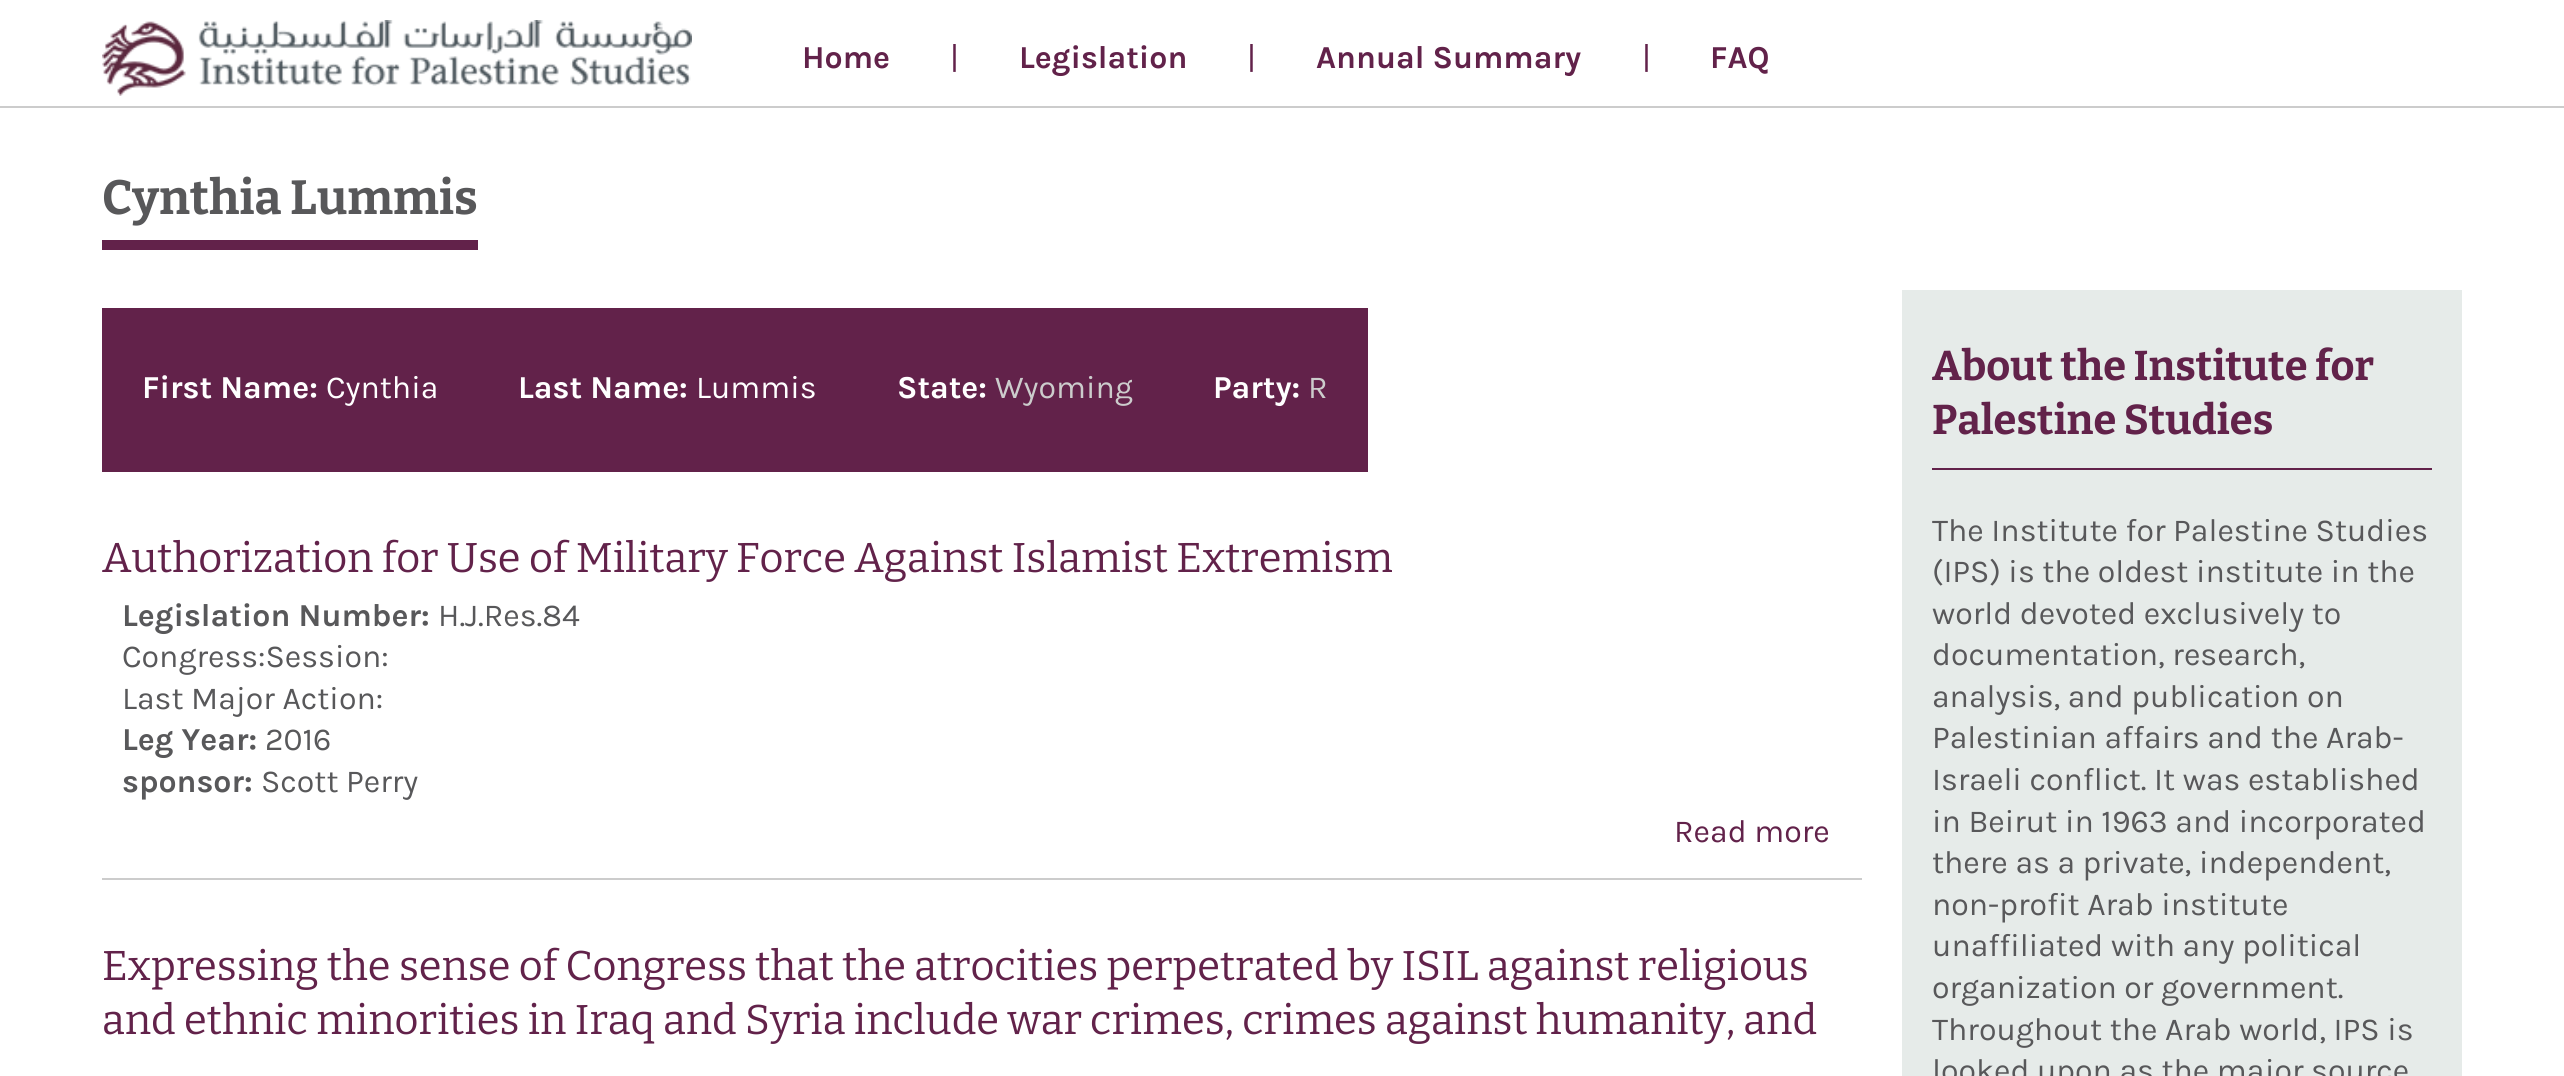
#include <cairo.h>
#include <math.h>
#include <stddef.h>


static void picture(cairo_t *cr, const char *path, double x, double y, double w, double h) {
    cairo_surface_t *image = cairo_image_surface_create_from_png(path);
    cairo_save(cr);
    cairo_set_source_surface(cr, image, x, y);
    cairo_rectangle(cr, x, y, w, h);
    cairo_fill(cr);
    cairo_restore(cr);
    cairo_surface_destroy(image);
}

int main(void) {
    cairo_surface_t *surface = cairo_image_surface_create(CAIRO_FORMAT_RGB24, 2564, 1076);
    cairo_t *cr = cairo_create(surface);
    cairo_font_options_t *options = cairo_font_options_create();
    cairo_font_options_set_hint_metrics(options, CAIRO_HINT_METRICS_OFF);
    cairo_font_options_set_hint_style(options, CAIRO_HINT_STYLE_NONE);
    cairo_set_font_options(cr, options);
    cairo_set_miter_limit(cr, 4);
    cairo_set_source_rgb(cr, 1, 1, 1);
    cairo_paint(cr);
    cairo_set_source_rgb(cr, 0.8, 0.8, 0.8);
    cairo_rectangle(cr, 0, 106, 2564, 2);
    cairo_fill(cr);
    picture(cr, "img1.png", 102, 20, 590, 76);
    cairo_select_font_face(cr, "Karla", CAIRO_FONT_SLANT_NORMAL, CAIRO_FONT_WEIGHT_BOLD);
    cairo_set_font_size(cr, 32);
    cairo_set_source_rgb(cr, 0.384, 0.133, 0.29);
    cairo_move_to(cr, 802, 68);
    cairo_show_text(cr, "Home");
    cairo_select_font_face(cr, "Karla", CAIRO_FONT_SLANT_NORMAL, CAIRO_FONT_WEIGHT_NORMAL);
    cairo_move_to(cr, 950, 68);
    cairo_show_text(cr, "|");
    cairo_select_font_face(cr, "Karla", CAIRO_FONT_SLANT_NORMAL, CAIRO_FONT_WEIGHT_BOLD);
    cairo_move_to(cr, 1019, 68);
    cairo_show_text(cr, "Legislation");
    cairo_select_font_face(cr, "Karla", CAIRO_FONT_SLANT_NORMAL, CAIRO_FONT_WEIGHT_NORMAL);
    cairo_move_to(cr, 1247, 68);
    cairo_show_text(cr, "|");
    cairo_select_font_face(cr, "Karla", CAIRO_FONT_SLANT_NORMAL, CAIRO_FONT_WEIGHT_BOLD);
    cairo_move_to(cr, 1316, 68);
    cairo_show_text(cr, "Annual Summary");
    cairo_select_font_face(cr, "Karla", CAIRO_FONT_SLANT_NORMAL, CAIRO_FONT_WEIGHT_NORMAL);
    cairo_move_to(cr, 1642, 68);
    cairo_show_text(cr, "|");
    cairo_select_font_face(cr, "Karla", CAIRO_FONT_SLANT_NORMAL, CAIRO_FONT_WEIGHT_BOLD);
    cairo_move_to(cr, 1710, 68);
    cairo_show_text(cr, "FAQ");
    cairo_rectangle(cr, 102, 240, 376, 10);
    cairo_fill(cr);
    cairo_select_font_face(cr, "Bitter", CAIRO_FONT_SLANT_NORMAL, CAIRO_FONT_WEIGHT_BOLD);
    cairo_set_font_size(cr, 48);
    cairo_set_source_rgb(cr, 0.345, 0.345, 0.353);
    cairo_move_to(cr, 102, 214);
    cairo_show_text(cr, "Cynthia Lummis");
    cairo_set_source_rgb(cr, 0.384, 0.133, 0.29);
    cairo_rectangle(cr, 102, 308, 1266, 164);
    cairo_fill(cr);
    cairo_select_font_face(cr, "Karla", CAIRO_FONT_SLANT_NORMAL, CAIRO_FONT_WEIGHT_BOLD);
    cairo_set_font_size(cr, 32);
    cairo_set_source_rgb(cr, 1, 1, 1);
    cairo_move_to(cr, 142, 398);
    cairo_show_text(cr, "First Name:");
    cairo_select_font_face(cr, "Karla", CAIRO_FONT_SLANT_NORMAL, CAIRO_FONT_WEIGHT_NORMAL);
    cairo_move_to(cr, 326, 398);
    cairo_show_text(cr, "Cynthia");
    cairo_select_font_face(cr, "Karla", CAIRO_FONT_SLANT_NORMAL, CAIRO_FONT_WEIGHT_BOLD);
    cairo_move_to(cr, 518, 398);
    cairo_show_text(cr, "Last Name:");
    cairo_select_font_face(cr, "Karla", CAIRO_FONT_SLANT_NORMAL, CAIRO_FONT_WEIGHT_NORMAL);
    cairo_move_to(cr, 696, 398);
    cairo_show_text(cr, "Lummis");
    cairo_select_font_face(cr, "Karla", CAIRO_FONT_SLANT_NORMAL, CAIRO_FONT_WEIGHT_BOLD);
    cairo_move_to(cr, 897, 398);
    cairo_show_text(cr, "State:");
    cairo_select_font_face(cr, "Karla", CAIRO_FONT_SLANT_NORMAL, CAIRO_FONT_WEIGHT_NORMAL);
    cairo_set_source_rgb(cr, 0.8, 0.8, 0.8);
    cairo_move_to(cr, 995, 398);
    cairo_show_text(cr, "Wyoming");
    cairo_select_font_face(cr, "Karla", CAIRO_FONT_SLANT_NORMAL, CAIRO_FONT_WEIGHT_BOLD);
    cairo_set_source_rgb(cr, 1, 1, 1);
    cairo_move_to(cr, 1213, 398);
    cairo_show_text(cr, "Party:");
    cairo_select_font_face(cr, "Karla", CAIRO_FONT_SLANT_NORMAL, CAIRO_FONT_WEIGHT_NORMAL);
    cairo_set_source_rgb(cr, 0.8, 0.8, 0.8);
    cairo_move_to(cr, 1308, 398);
    cairo_show_text(cr, "R");
    cairo_select_font_face(cr, "Bitter", CAIRO_FONT_SLANT_NORMAL, CAIRO_FONT_WEIGHT_NORMAL);
    cairo_set_font_size(cr, 41.6);
    cairo_set_source_rgb(cr, 0.384, 0.133, 0.29);
    cairo_move_to(cr, 102, 572);
    cairo_show_text(cr, "Authorization for Use of Military Force Against Islamist Extremism");
    cairo_select_font_face(cr, "Karla", CAIRO_FONT_SLANT_NORMAL, CAIRO_FONT_WEIGHT_BOLD);
    cairo_set_font_size(cr, 32);
    cairo_set_source_rgb(cr, 0.345, 0.345, 0.353);
    cairo_move_to(cr, 122, 626);
    cairo_show_text(cr, "Legislation Number:");
    cairo_select_font_face(cr, "Karla", CAIRO_FONT_SLANT_NORMAL, CAIRO_FONT_WEIGHT_NORMAL);
    cairo_move_to(cr, 438, 626);
    cairo_show_text(cr, "H.J.Res.84");
    cairo_move_to(cr, 122, 667);
    cairo_show_text(cr, "Congress:Session:");
    cairo_move_to(cr, 122, 709);
    cairo_show_text(cr, "Last Major Action:");
    cairo_select_font_face(cr, "Karla", CAIRO_FONT_SLANT_NORMAL, CAIRO_FONT_WEIGHT_BOLD);
    cairo_move_to(cr, 122, 750);
    cairo_show_text(cr, "Leg Year:");
    cairo_select_font_face(cr, "Karla", CAIRO_FONT_SLANT_NORMAL, CAIRO_FONT_WEIGHT_NORMAL);
    cairo_move_to(cr, 265, 750);
    cairo_show_text(cr, "2016");
    cairo_select_font_face(cr, "Karla", CAIRO_FONT_SLANT_NORMAL, CAIRO_FONT_WEIGHT_BOLD);
    cairo_move_to(cr, 122, 792);
    cairo_show_text(cr, "sponsor:");
    cairo_select_font_face(cr, "Karla", CAIRO_FONT_SLANT_NORMAL, CAIRO_FONT_WEIGHT_NORMAL);
    cairo_move_to(cr, 261, 792);
    cairo_show_text(cr, "Scott Perry");
    cairo_set_source_rgb(cr, 0.8, 0.8, 0.8);
    cairo_rectangle(cr, 102, 878, 1760, 2);
    cairo_fill(cr);
    cairo_set_source_rgb(cr, 0.384, 0.133, 0.29);
    cairo_move_to(cr, 1674, 842);
    cairo_show_text(cr, "Read more");
    cairo_select_font_face(cr, "Bitter", CAIRO_FONT_SLANT_NORMAL, CAIRO_FONT_WEIGHT_NORMAL);
    cairo_set_font_size(cr, 41.6);
    cairo_move_to(cr, 102, 980);
    cairo_show_text(cr, "Expressing the sense of Congress that the atrocities perpetrated by ISIL against religious");
    cairo_move_to(cr, 102, 1034);
    cairo_show_text(cr, "and ethnic minorities in Iraq and Syria include war crimes, crimes against humanity, and");
    cairo_set_source_rgb(cr, 0.902, 0.918, 0.914);
    cairo_rectangle(cr, 1902, 290, 560, 786);
    cairo_fill(cr);
    cairo_set_source_rgb(cr, 0.384, 0.133, 0.29);
    cairo_rectangle(cr, 1932, 468, 500, 2);
    cairo_fill(cr);
    cairo_select_font_face(cr, "Bitter", CAIRO_FONT_SLANT_NORMAL, CAIRO_FONT_WEIGHT_BOLD);
    cairo_move_to(cr, 1932, 380);
    cairo_show_text(cr, "About the Institute for");
    cairo_move_to(cr, 1932, 434);
    cairo_show_text(cr, "Palestine Studies");
    cairo_select_font_face(cr, "Karla", CAIRO_FONT_SLANT_NORMAL, CAIRO_FONT_WEIGHT_NORMAL);
    cairo_set_font_size(cr, 32);
    cairo_set_source_rgb(cr, 0.345, 0.345, 0.353);
    cairo_move_to(cr, 1932, 541);
    cairo_show_text(cr, "The Institute for Palestine Studies");
    cairo_move_to(cr, 1932, 582);
    cairo_show_text(cr, "(IPS) is the oldest institute in the");
    cairo_move_to(cr, 1932, 624);
    cairo_show_text(cr, "world devoted exclusively to");
    cairo_move_to(cr, 1932, 665);
    cairo_show_text(cr, "documentation, research,");
    cairo_move_to(cr, 1932, 707);
    cairo_show_text(cr, "analysis, and publication on");
    cairo_move_to(cr, 1932, 748);
    cairo_show_text(cr, "Palestinian affairs and the Arab-");
    cairo_move_to(cr, 1932, 790);
    cairo_show_text(cr, "Israeli conflict. It was established");
    cairo_move_to(cr, 1932, 832);
    cairo_show_text(cr, "in Beirut in 1963 and incorporated");
    cairo_move_to(cr, 1932, 873);
    cairo_show_text(cr, "there as a private, independent,");
    cairo_move_to(cr, 1932, 915);
    cairo_show_text(cr, "non-profit Arab institute");
    cairo_move_to(cr, 1932, 956);
    cairo_show_text(cr, "unaffiliated with any political");
    cairo_move_to(cr, 1932, 998);
    cairo_show_text(cr, "organization or government.");
    cairo_move_to(cr, 1932, 1040);
    cairo_show_text(cr, "Throughout the Arab world, IPS is");
    cairo_move_to(cr, 1932, 1081);
    cairo_show_text(cr, "looked upon as the major source");
    cairo_surface_write_to_png(surface, "page.png");
    cairo_font_options_destroy(options);
    cairo_destroy(cr);
    cairo_surface_destroy(surface);
    return 0;
}
